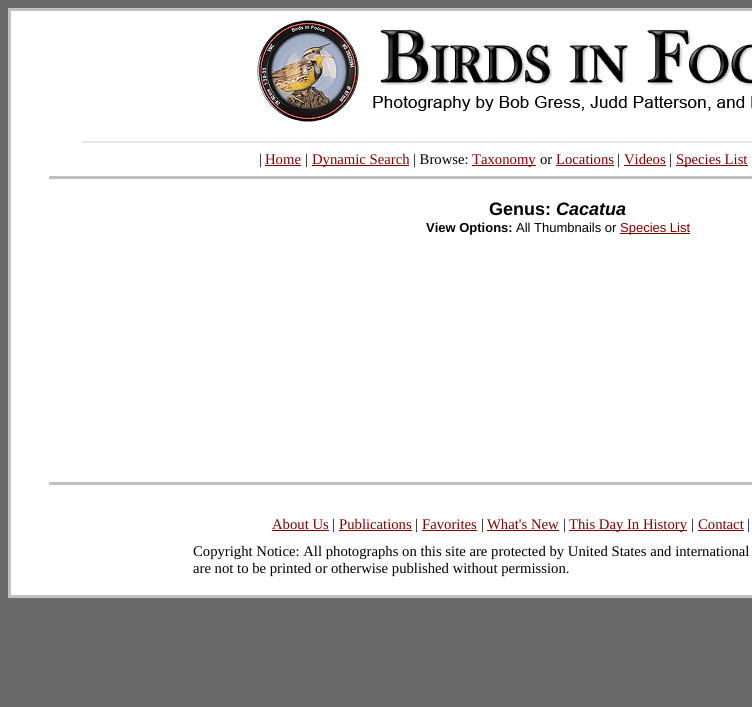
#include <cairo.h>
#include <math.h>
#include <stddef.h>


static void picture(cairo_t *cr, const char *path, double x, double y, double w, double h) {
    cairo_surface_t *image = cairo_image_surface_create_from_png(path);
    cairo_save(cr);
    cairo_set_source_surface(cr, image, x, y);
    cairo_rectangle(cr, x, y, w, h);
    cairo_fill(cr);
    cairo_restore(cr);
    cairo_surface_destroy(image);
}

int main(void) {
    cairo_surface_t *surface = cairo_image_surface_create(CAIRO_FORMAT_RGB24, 752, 707);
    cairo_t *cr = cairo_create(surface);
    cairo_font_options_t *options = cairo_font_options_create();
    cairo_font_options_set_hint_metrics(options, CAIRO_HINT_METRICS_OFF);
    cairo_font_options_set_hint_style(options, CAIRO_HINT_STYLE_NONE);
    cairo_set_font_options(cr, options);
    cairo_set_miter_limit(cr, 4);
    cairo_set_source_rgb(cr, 0.416, 0.416, 0.416);
    cairo_paint(cr);
    cairo_set_source_rgb(cr, 1, 1, 1);
    cairo_rectangle(cr, 11, 11, 741, 584);
    cairo_fill(cr);
    cairo_set_source_rgb(cr, 0.753, 0.753, 0.753);
    cairo_rectangle(cr, 8, 8, 744, 3);
    cairo_fill(cr);
    cairo_rectangle(cr, 8, 595, 744, 3);
    cairo_fill(cr);
    cairo_rectangle(cr, 8, 8, 3, 590);
    cairo_fill(cr);
    picture(cr, "img1.png", 257, 20, 495, 102);
    cairo_set_source_rgb(cr, 0.902, 0.902, 0.902);
    cairo_rectangle(cr, 82, 141, 670, 2);
    cairo_fill(cr);
    cairo_select_font_face(cr, "Liberation Serif", CAIRO_FONT_SLANT_NORMAL, CAIRO_FONT_WEIGHT_NORMAL);
    cairo_set_font_size(cr, 14.7);
    cairo_set_source_rgb(cr, 0, 0, 0);
    cairo_move_to(cr, 259, 164);
    cairo_show_text(cr, "|");
    cairo_set_source_rgb(cr, 0.502, 0, 0);
    cairo_move_to(cr, 265, 164);
    cairo_show_text(cr, "Home");
    cairo_rectangle(cr, 265, 165, 36, 1);
    cairo_fill(cr);
    cairo_set_source_rgb(cr, 0, 0, 0);
    cairo_move_to(cr, 305, 164);
    cairo_show_text(cr, "|");
    cairo_set_source_rgb(cr, 0.502, 0, 0);
    cairo_rectangle(cr, 312, 165, 97, 1);
    cairo_fill(cr);
    cairo_move_to(cr, 312, 164);
    cairo_show_text(cr, "Dynamic Search");
    cairo_set_source_rgb(cr, 0, 0, 0);
    cairo_move_to(cr, 413, 164);
    cairo_show_text(cr, "| Browse:");
    cairo_set_source_rgb(cr, 0.502, 0, 0);
    cairo_rectangle(cr, 472, 165, 64, 1);
    cairo_fill(cr);
    cairo_move_to(cr, 472, 164);
    cairo_show_text(cr, "Taxonomy");
    cairo_set_source_rgb(cr, 0, 0, 0);
    cairo_move_to(cr, 540, 164);
    cairo_show_text(cr, "or");
    cairo_set_source_rgb(cr, 0.502, 0, 0);
    cairo_move_to(cr, 556, 164);
    cairo_show_text(cr, "Locations");
    cairo_rectangle(cr, 556, 165, 58, 1);
    cairo_fill(cr);
    cairo_set_source_rgb(cr, 0, 0, 0);
    cairo_move_to(cr, 617, 164);
    cairo_show_text(cr, "|");
    cairo_set_source_rgb(cr, 0.502, 0, 0);
    cairo_move_to(cr, 624, 164);
    cairo_show_text(cr, "Videos");
    cairo_rectangle(cr, 624, 165, 42, 1);
    cairo_fill(cr);
    cairo_set_source_rgb(cr, 0, 0, 0);
    cairo_move_to(cr, 669, 164);
    cairo_show_text(cr, "|");
    cairo_set_source_rgb(cr, 0.502, 0, 0);
    cairo_rectangle(cr, 676, 165, 72, 1);
    cairo_fill(cr);
    cairo_move_to(cr, 676, 164);
    cairo_show_text(cr, "Species List");
    cairo_set_source_rgb(cr, 0.753, 0.753, 0.753);
    cairo_rectangle(cr, 49, 176, 703, 3);
    cairo_fill(cr);
    cairo_select_font_face(cr, "Liberation Sans", CAIRO_FONT_SLANT_NORMAL, CAIRO_FONT_WEIGHT_BOLD);
    cairo_set_font_size(cr, 18);
    cairo_set_source_rgb(cr, 0, 0, 0);
    cairo_move_to(cr, 489, 215);
    cairo_show_text(cr, "Genus:");
    cairo_select_font_face(cr, "Liberation Sans", CAIRO_FONT_SLANT_ITALIC, CAIRO_FONT_WEIGHT_BOLD);
    cairo_move_to(cr, 556, 215);
    cairo_show_text(cr, "Cacatua");
    cairo_select_font_face(cr, "Liberation Sans", CAIRO_FONT_SLANT_NORMAL, CAIRO_FONT_WEIGHT_BOLD);
    cairo_set_font_size(cr, 13);
    cairo_move_to(cr, 426, 232);
    cairo_show_text(cr, "View Options:");
    cairo_select_font_face(cr, "Liberation Sans", CAIRO_FONT_SLANT_NORMAL, CAIRO_FONT_WEIGHT_NORMAL);
    cairo_move_to(cr, 516, 232);
    cairo_show_text(cr, "All Thumbnails or");
    cairo_set_source_rgb(cr, 0.502, 0, 0);
    cairo_rectangle(cr, 620, 233, 70, 1);
    cairo_fill(cr);
    cairo_move_to(cr, 620, 232);
    cairo_show_text(cr, "Species List");
    cairo_set_source_rgb(cr, 0.753, 0.753, 0.753);
    cairo_rectangle(cr, 49, 482, 703, 3);
    cairo_fill(cr);
    cairo_select_font_face(cr, "Liberation Serif", CAIRO_FONT_SLANT_NORMAL, CAIRO_FONT_WEIGHT_NORMAL);
    cairo_set_font_size(cr, 14.7);
    cairo_set_source_rgb(cr, 0.502, 0, 0);
    cairo_move_to(cr, 272, 529);
    cairo_show_text(cr, "About Us");
    cairo_rectangle(cr, 272, 530, 57, 1);
    cairo_fill(cr);
    cairo_set_source_rgb(cr, 0, 0, 0);
    cairo_move_to(cr, 332, 529);
    cairo_show_text(cr, "|");
    cairo_set_source_rgb(cr, 0.502, 0, 0);
    cairo_move_to(cr, 339, 529);
    cairo_show_text(cr, "Publications");
    cairo_rectangle(cr, 339, 530, 73, 1);
    cairo_fill(cr);
    cairo_set_source_rgb(cr, 0, 0, 0);
    cairo_move_to(cr, 415, 529);
    cairo_show_text(cr, "|");
    cairo_set_source_rgb(cr, 0.502, 0, 0);
    cairo_move_to(cr, 422, 529);
    cairo_show_text(cr, "Favorites");
    cairo_rectangle(cr, 422, 530, 55, 1);
    cairo_fill(cr);
    cairo_set_source_rgb(cr, 0, 0, 0);
    cairo_move_to(cr, 481, 529);
    cairo_show_text(cr, "|");
    cairo_set_source_rgb(cr, 0.502, 0, 0);
    cairo_move_to(cr, 487, 529);
    cairo_show_text(cr, "What's New");
    cairo_rectangle(cr, 487, 530, 72, 1);
    cairo_fill(cr);
    cairo_set_source_rgb(cr, 0, 0, 0);
    cairo_move_to(cr, 563, 529);
    cairo_show_text(cr, "|");
    cairo_set_source_rgb(cr, 0.502, 0, 0);
    cairo_rectangle(cr, 569, 530, 118, 1);
    cairo_fill(cr);
    cairo_move_to(cr, 569, 529);
    cairo_show_text(cr, "This Day In History");
    cairo_set_source_rgb(cr, 0, 0, 0);
    cairo_move_to(cr, 691, 529);
    cairo_show_text(cr, "|");
    cairo_set_source_rgb(cr, 0.502, 0, 0);
    cairo_move_to(cr, 698, 529);
    cairo_show_text(cr, "Contact");
    cairo_rectangle(cr, 698, 530, 46, 1);
    cairo_fill(cr);
    cairo_set_source_rgb(cr, 0, 0, 0);
    cairo_move_to(cr, 747, 529);
    cairo_show_text(cr, "|");
    cairo_move_to(cr, 193, 556);
    cairo_show_text(cr, "Copyright Notice: All photographs on this site are protected by United States and international");
    cairo_move_to(cr, 193, 573);
    cairo_show_text(cr, "are not to be printed or otherwise published without permission.");
    cairo_surface_write_to_png(surface, "page.png");
    cairo_font_options_destroy(options);
    cairo_destroy(cr);
    cairo_surface_destroy(surface);
    return 0;
}
